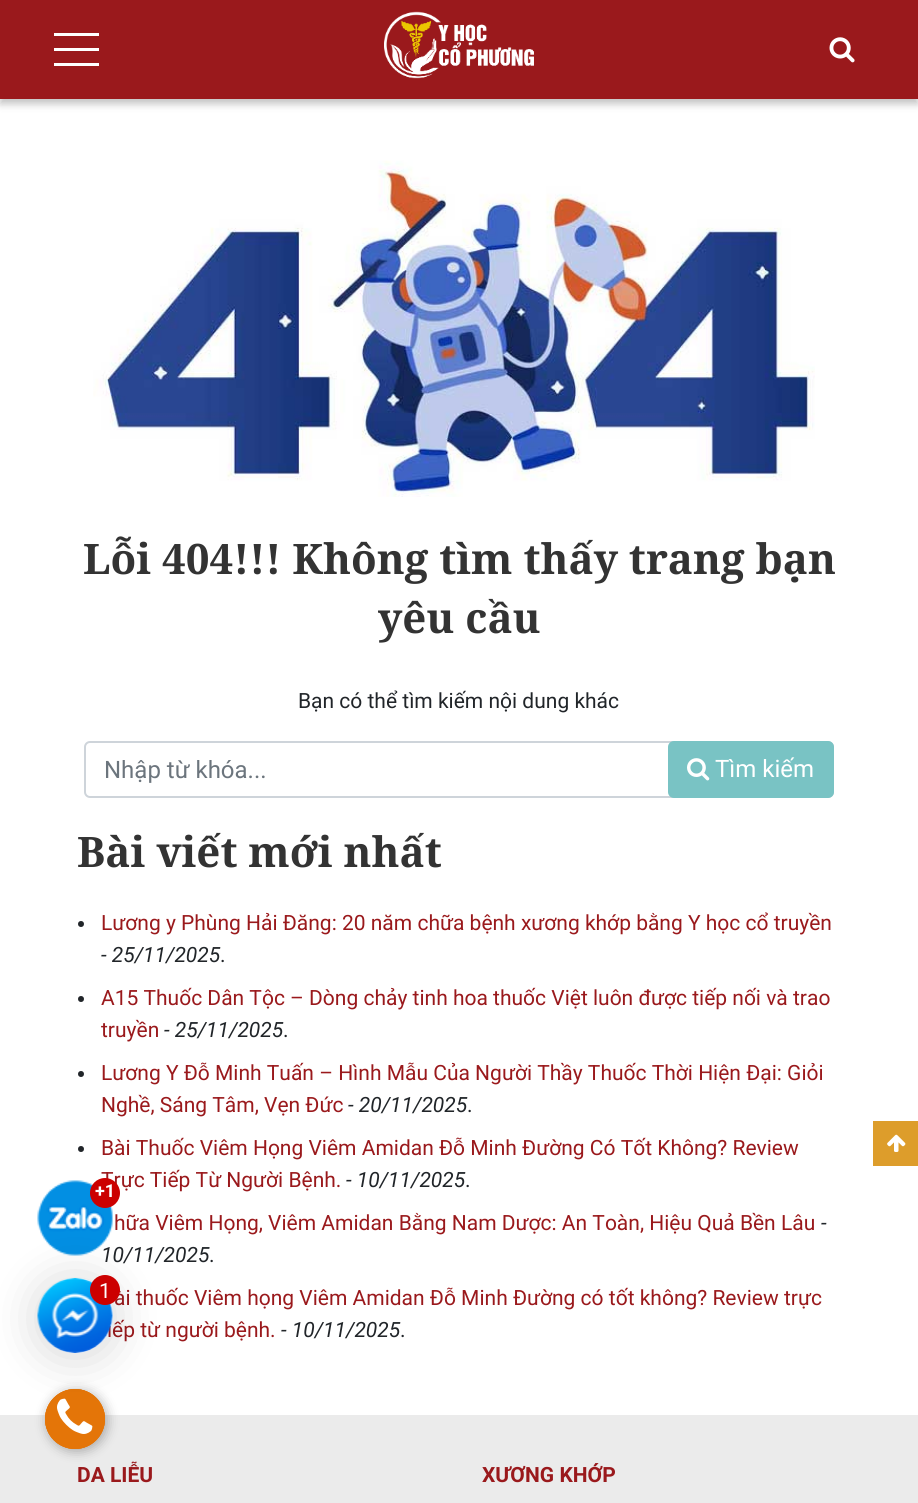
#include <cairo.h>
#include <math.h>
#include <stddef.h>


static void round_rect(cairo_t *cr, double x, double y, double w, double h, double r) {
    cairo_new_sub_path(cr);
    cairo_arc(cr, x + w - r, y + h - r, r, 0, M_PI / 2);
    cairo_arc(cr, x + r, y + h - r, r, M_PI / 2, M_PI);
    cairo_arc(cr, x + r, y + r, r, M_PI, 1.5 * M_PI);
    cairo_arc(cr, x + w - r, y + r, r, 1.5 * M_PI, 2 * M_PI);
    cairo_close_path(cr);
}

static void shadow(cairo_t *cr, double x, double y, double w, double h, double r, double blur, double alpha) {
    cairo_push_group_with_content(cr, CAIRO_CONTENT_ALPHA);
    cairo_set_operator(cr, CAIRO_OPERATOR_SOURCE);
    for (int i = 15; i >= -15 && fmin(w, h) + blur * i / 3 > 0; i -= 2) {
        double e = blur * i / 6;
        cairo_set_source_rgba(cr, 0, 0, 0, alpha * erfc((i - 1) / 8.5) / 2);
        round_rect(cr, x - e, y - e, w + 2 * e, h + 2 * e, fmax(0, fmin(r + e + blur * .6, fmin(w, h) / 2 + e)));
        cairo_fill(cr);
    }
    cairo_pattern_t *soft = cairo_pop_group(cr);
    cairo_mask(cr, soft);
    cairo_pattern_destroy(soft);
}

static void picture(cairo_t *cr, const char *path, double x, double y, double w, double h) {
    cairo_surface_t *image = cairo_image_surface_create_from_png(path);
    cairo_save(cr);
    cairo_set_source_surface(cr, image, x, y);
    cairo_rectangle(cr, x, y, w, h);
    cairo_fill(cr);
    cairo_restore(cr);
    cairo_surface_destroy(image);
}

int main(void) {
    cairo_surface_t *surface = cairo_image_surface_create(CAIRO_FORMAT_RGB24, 918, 1503);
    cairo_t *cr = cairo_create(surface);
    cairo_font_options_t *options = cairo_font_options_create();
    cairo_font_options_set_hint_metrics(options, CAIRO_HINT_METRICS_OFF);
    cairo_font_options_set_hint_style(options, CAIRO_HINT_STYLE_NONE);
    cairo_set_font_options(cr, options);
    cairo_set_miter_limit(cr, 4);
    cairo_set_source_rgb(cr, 1, 1, 1);
    cairo_paint(cr);
    cairo_set_source_rgb(cr, 0, 0, 0);
    shadow(cr, 0, 5, 918, 99, 0, 4, 0.24);
    cairo_set_source_rgb(cr, 0.604, 0.098, 0.11);
    cairo_rectangle(cr, 0, 0, 918, 99);
    cairo_fill(cr);
    cairo_set_source_rgb(cr, 1, 1, 1);
    cairo_rectangle(cr, 54, 48, 45, 3);
    cairo_fill(cr);
    cairo_rectangle(cr, 54, 33, 45, 3);
    cairo_fill(cr);
    cairo_rectangle(cr, 54, 63, 45, 3);
    cairo_fill(cr);
    picture(cr, "img1.png", 384, 11, 150, 68);
    picture(cr, "img2.png", 829, 37, 26, 26);
    picture(cr, "img3.png", 93, 160, 722, 337);
    cairo_select_font_face(cr, "Noto Serif", CAIRO_FONT_SLANT_NORMAL, CAIRO_FONT_WEIGHT_BOLD);
    cairo_set_font_size(cr, 42);
    cairo_set_source_rgb(cr, 0.2, 0.2, 0.2);
    cairo_move_to(cr, 83, 574);
    cairo_show_text(cr, "Lỗi 404!!! Không tìm thấy trang bạn");
    cairo_move_to(cr, 378, 633);
    cairo_show_text(cr, "yêu cầu");
    cairo_select_font_face(cr, "Roboto", CAIRO_FONT_SLANT_NORMAL, CAIRO_FONT_WEIGHT_NORMAL);
    cairo_set_font_size(cr, 21);
    cairo_set_source_rgb(cr, 0.129, 0.145, 0.161);
    cairo_move_to(cr, 298, 708);
    cairo_show_text(cr, "Bạn có thể tìm kiếm nội dung khác");
    round_rect(cr, 85, 742, 748, 55, 5);
    cairo_set_source_rgb(cr, 0.808, 0.831, 0.855);
    cairo_stroke(cr);
    cairo_set_font_size(cr, 24);
    cairo_set_source_rgb(cr, 0.424, 0.459, 0.49);
    cairo_move_to(cr, 104, 778);
    cairo_show_text(cr, "Nhập từ khóa...");
    cairo_set_source_rgb(cr, 0.475, 0.765, 0.769);
    round_rect(cr, 668, 741, 166, 57, 6);
    cairo_fill(cr);
    picture(cr, "img4.png", 687, 758, 23, 23);
    cairo_set_source_rgb(cr, 1, 1, 1);
    cairo_move_to(cr, 715, 777);
    cairo_show_text(cr, "Tìm kiếm");
    cairo_select_font_face(cr, "Noto Serif", CAIRO_FONT_SLANT_NORMAL, CAIRO_FONT_WEIGHT_BOLD);
    cairo_set_font_size(cr, 42);
    cairo_set_source_rgb(cr, 0.2, 0.2, 0.2);
    cairo_move_to(cr, 77, 867);
    cairo_show_text(cr, "Bài viết mới nhất");
    cairo_set_source_rgb(cr, 0.129, 0.145, 0.161);
    cairo_new_path(cr);
    cairo_arc(cr, 81, 924, 3, 0, 2 * M_PI);
    cairo_fill(cr);
    cairo_select_font_face(cr, "Roboto", CAIRO_FONT_SLANT_NORMAL, CAIRO_FONT_WEIGHT_NORMAL);
    cairo_set_font_size(cr, 21);
    cairo_set_source_rgb(cr, 0.604, 0.098, 0.11);
    cairo_move_to(cr, 101, 930);
    cairo_show_text(cr, "Lương y Phùng Hải Đăng: 20 năm chữa bệnh xương khớp bằng Y học cổ truyền");
    cairo_select_font_face(cr, "Roboto", CAIRO_FONT_SLANT_ITALIC, CAIRO_FONT_WEIGHT_NORMAL);
    cairo_set_source_rgb(cr, 0.129, 0.145, 0.161);
    cairo_move_to(cr, 101, 962);
    cairo_show_text(cr, "- 25/11/2025");
    cairo_select_font_face(cr, "Roboto", CAIRO_FONT_SLANT_NORMAL, CAIRO_FONT_WEIGHT_NORMAL);
    cairo_move_to(cr, 220, 962);
    cairo_show_text(cr, ".");
    cairo_new_path(cr);
    cairo_arc(cr, 81, 999, 3, 0, 2 * M_PI);
    cairo_fill(cr);
    cairo_set_source_rgb(cr, 0.604, 0.098, 0.11);
    cairo_move_to(cr, 101, 1005);
    cairo_show_text(cr, "A15 Thuốc Dân Tộc – Dòng chảy tinh hoa thuốc Việt luôn được tiếp nối và trao");
    cairo_move_to(cr, 101, 1037);
    cairo_show_text(cr, "truyền");
    cairo_select_font_face(cr, "Roboto", CAIRO_FONT_SLANT_ITALIC, CAIRO_FONT_WEIGHT_NORMAL);
    cairo_set_source_rgb(cr, 0.129, 0.145, 0.161);
    cairo_move_to(cr, 164, 1037);
    cairo_show_text(cr, "- 25/11/2025");
    cairo_select_font_face(cr, "Roboto", CAIRO_FONT_SLANT_NORMAL, CAIRO_FONT_WEIGHT_NORMAL);
    cairo_move_to(cr, 283, 1037);
    cairo_show_text(cr, ".");
    cairo_new_path(cr);
    cairo_arc(cr, 81, 1074, 3, 0, 2 * M_PI);
    cairo_fill(cr);
    cairo_set_source_rgb(cr, 0.604, 0.098, 0.11);
    cairo_move_to(cr, 101, 1080);
    cairo_show_text(cr, "Lương Y Đỗ Minh Tuấn – Hình Mẫu Của Người Thầy Thuốc Thời Hiện Đại: Giỏi");
    cairo_move_to(cr, 101, 1112);
    cairo_show_text(cr, "Nghề, Sáng Tâm, Vẹn Đức");
    cairo_select_font_face(cr, "Roboto", CAIRO_FONT_SLANT_ITALIC, CAIRO_FONT_WEIGHT_NORMAL);
    cairo_set_source_rgb(cr, 0.129, 0.145, 0.161);
    cairo_move_to(cr, 348, 1112);
    cairo_show_text(cr, "- 20/11/2025");
    cairo_select_font_face(cr, "Roboto", CAIRO_FONT_SLANT_NORMAL, CAIRO_FONT_WEIGHT_NORMAL);
    cairo_move_to(cr, 467, 1112);
    cairo_show_text(cr, ".");
    cairo_new_path(cr);
    cairo_arc(cr, 81, 1149, 3, 0, 2 * M_PI);
    cairo_fill(cr);
    cairo_set_source_rgb(cr, 0.604, 0.098, 0.11);
    cairo_move_to(cr, 101, 1155);
    cairo_show_text(cr, "Bài Thuốc Viêm Họng Viêm Amidan Đỗ Minh Đường Có Tốt Không? Review");
    cairo_move_to(cr, 101, 1187);
    cairo_show_text(cr, "Trực Tiếp Từ Người Bệnh.");
    cairo_select_font_face(cr, "Roboto", CAIRO_FONT_SLANT_ITALIC, CAIRO_FONT_WEIGHT_NORMAL);
    cairo_set_source_rgb(cr, 0.129, 0.145, 0.161);
    cairo_move_to(cr, 346, 1187);
    cairo_show_text(cr, "- 10/11/2025");
    cairo_select_font_face(cr, "Roboto", CAIRO_FONT_SLANT_NORMAL, CAIRO_FONT_WEIGHT_NORMAL);
    cairo_move_to(cr, 465, 1187);
    cairo_show_text(cr, ".");
    cairo_set_source_rgb(cr, 0.604, 0.098, 0.11);
    cairo_move_to(cr, 114, 1230);
    cairo_show_text(cr, "hữa Viêm Họng, Viêm Amidan Bằng Nam Dược: An Toàn, Hiệu Quả Bền Lâu");
    cairo_select_font_face(cr, "Roboto", CAIRO_FONT_SLANT_ITALIC, CAIRO_FONT_WEIGHT_NORMAL);
    cairo_set_source_rgb(cr, 0.129, 0.145, 0.161);
    cairo_move_to(cr, 821, 1230);
    cairo_show_text(cr, "-");
    cairo_move_to(cr, 101, 1262);
    cairo_show_text(cr, "10/11/2025");
    cairo_select_font_face(cr, "Roboto", CAIRO_FONT_SLANT_NORMAL, CAIRO_FONT_WEIGHT_NORMAL);
    cairo_move_to(cr, 209, 1262);
    cairo_show_text(cr, ".");
    cairo_set_source_rgb(cr, 0.604, 0.098, 0.11);
    cairo_move_to(cr, 114, 1305);
    cairo_show_text(cr, "ài thuốc Viêm họng Viêm Amidan Đỗ Minh Đường có tốt không? Review trực");
    cairo_move_to(cr, 107, 1337);
    cairo_show_text(cr, "iếp từ người bệnh.");
    cairo_select_font_face(cr, "Roboto", CAIRO_FONT_SLANT_ITALIC, CAIRO_FONT_WEIGHT_NORMAL);
    cairo_set_source_rgb(cr, 0.129, 0.145, 0.161);
    cairo_move_to(cr, 281, 1337);
    cairo_show_text(cr, "- 10/11/2025");
    cairo_select_font_face(cr, "Roboto", CAIRO_FONT_SLANT_NORMAL, CAIRO_FONT_WEIGHT_NORMAL);
    cairo_move_to(cr, 400, 1337);
    cairo_show_text(cr, ".");
    cairo_set_source_rgb(cr, 0.867, 0.616, 0.169);
    cairo_rectangle(cr, 873, 1121, 45, 45);
    cairo_fill(cr);
    picture(cr, "img5.png", 887, 1134, 19, 18);
    picture(cr, "img6.png", 37, 1180, 76, 76);
    cairo_set_source_rgb(cr, 0.8, 0, 0);
    cairo_arc(cr, 105, 1193, 15, 0, 2 * M_PI);
    cairo_fill(cr);
    cairo_select_font_face(cr, "Roboto", CAIRO_FONT_SLANT_NORMAL, CAIRO_FONT_WEIGHT_BOLD);
    cairo_set_font_size(cr, 18);
    cairo_set_source_rgb(cr, 1, 1, 1);
    cairo_move_to(cr, 95, 1197);
    cairo_show_text(cr, "+1");
    cairo_set_source_rgb(cr, 0.918, 0.918, 0.918);
    cairo_rectangle(cr, 0, 1415, 918, 88);
    cairo_fill(cr);
    cairo_set_source_rgb(cr, 0, 0, 0);
    shadow(cr, 47, 1391, 60, 60, 30, 6, 0.3);
    cairo_set_source_rgb(cr, 0.894, 0.459, 0.035);
    cairo_arc(cr, 75, 1419, 30, 0, 2 * M_PI);
    cairo_fill(cr);
    picture(cr, "img8.png", 57, 1398, 36, 36);
    cairo_arc(cr, 75, 1419, 29, 0, 2 * M_PI);
    cairo_stroke(cr);
    cairo_arc(cr, 75, 1419, 29, 0, 2 * M_PI);
    cairo_stroke(cr);
    cairo_save(cr);
    cairo_set_fill_rule(cr, CAIRO_FILL_RULE_EVEN_ODD);
    cairo_new_path(cr);
    cairo_move_to(cr, 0, 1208);
    cairo_line_to(cr, 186, 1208);
    cairo_line_to(cr, 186, 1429);
    cairo_line_to(cr, 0, 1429);
    cairo_close_path(cr);
    cairo_move_to(cr, 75.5, 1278);
    cairo_curve_to(cr, 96, 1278, 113, 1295, 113, 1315.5);
    cairo_curve_to(cr, 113, 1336, 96, 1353, 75.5, 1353);
    cairo_curve_to(cr, 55, 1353, 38, 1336, 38, 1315.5);
    cairo_curve_to(cr, 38, 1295, 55, 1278, 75.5, 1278);
    cairo_close_path(cr);
    cairo_clip(cr);
    cairo_set_source_rgb(cr, 0, 0, 0);
    shadow(cr, 38, 1281, 75, 75, 37.5, 24, 0.16);
    cairo_restore(cr);
    picture(cr, "img7.png", 37, 1278, 76, 75);
    cairo_set_source_rgb(cr, 0.8, 0, 0);
    cairo_arc(cr, 105, 1290, 15, 0, 2 * M_PI);
    cairo_fill(cr);
    cairo_select_font_face(cr, "Roboto", CAIRO_FONT_SLANT_NORMAL, CAIRO_FONT_WEIGHT_NORMAL);
    cairo_set_font_size(cr, 21);
    cairo_set_source_rgb(cr, 1, 1, 1);
    cairo_move_to(cr, 99, 1298);
    cairo_show_text(cr, "1");
    cairo_select_font_face(cr, "Roboto", CAIRO_FONT_SLANT_NORMAL, CAIRO_FONT_WEIGHT_BOLD);
    cairo_set_source_rgb(cr, 0.604, 0.098, 0.11);
    cairo_move_to(cr, 77, 1482);
    cairo_show_text(cr, "DA LIỄU");
    cairo_move_to(cr, 482, 1482);
    cairo_show_text(cr, "XƯƠNG KHỚP");
    cairo_surface_write_to_png(surface, "page.png");
    cairo_font_options_destroy(options);
    cairo_destroy(cr);
    cairo_surface_destroy(surface);
    return 0;
}
